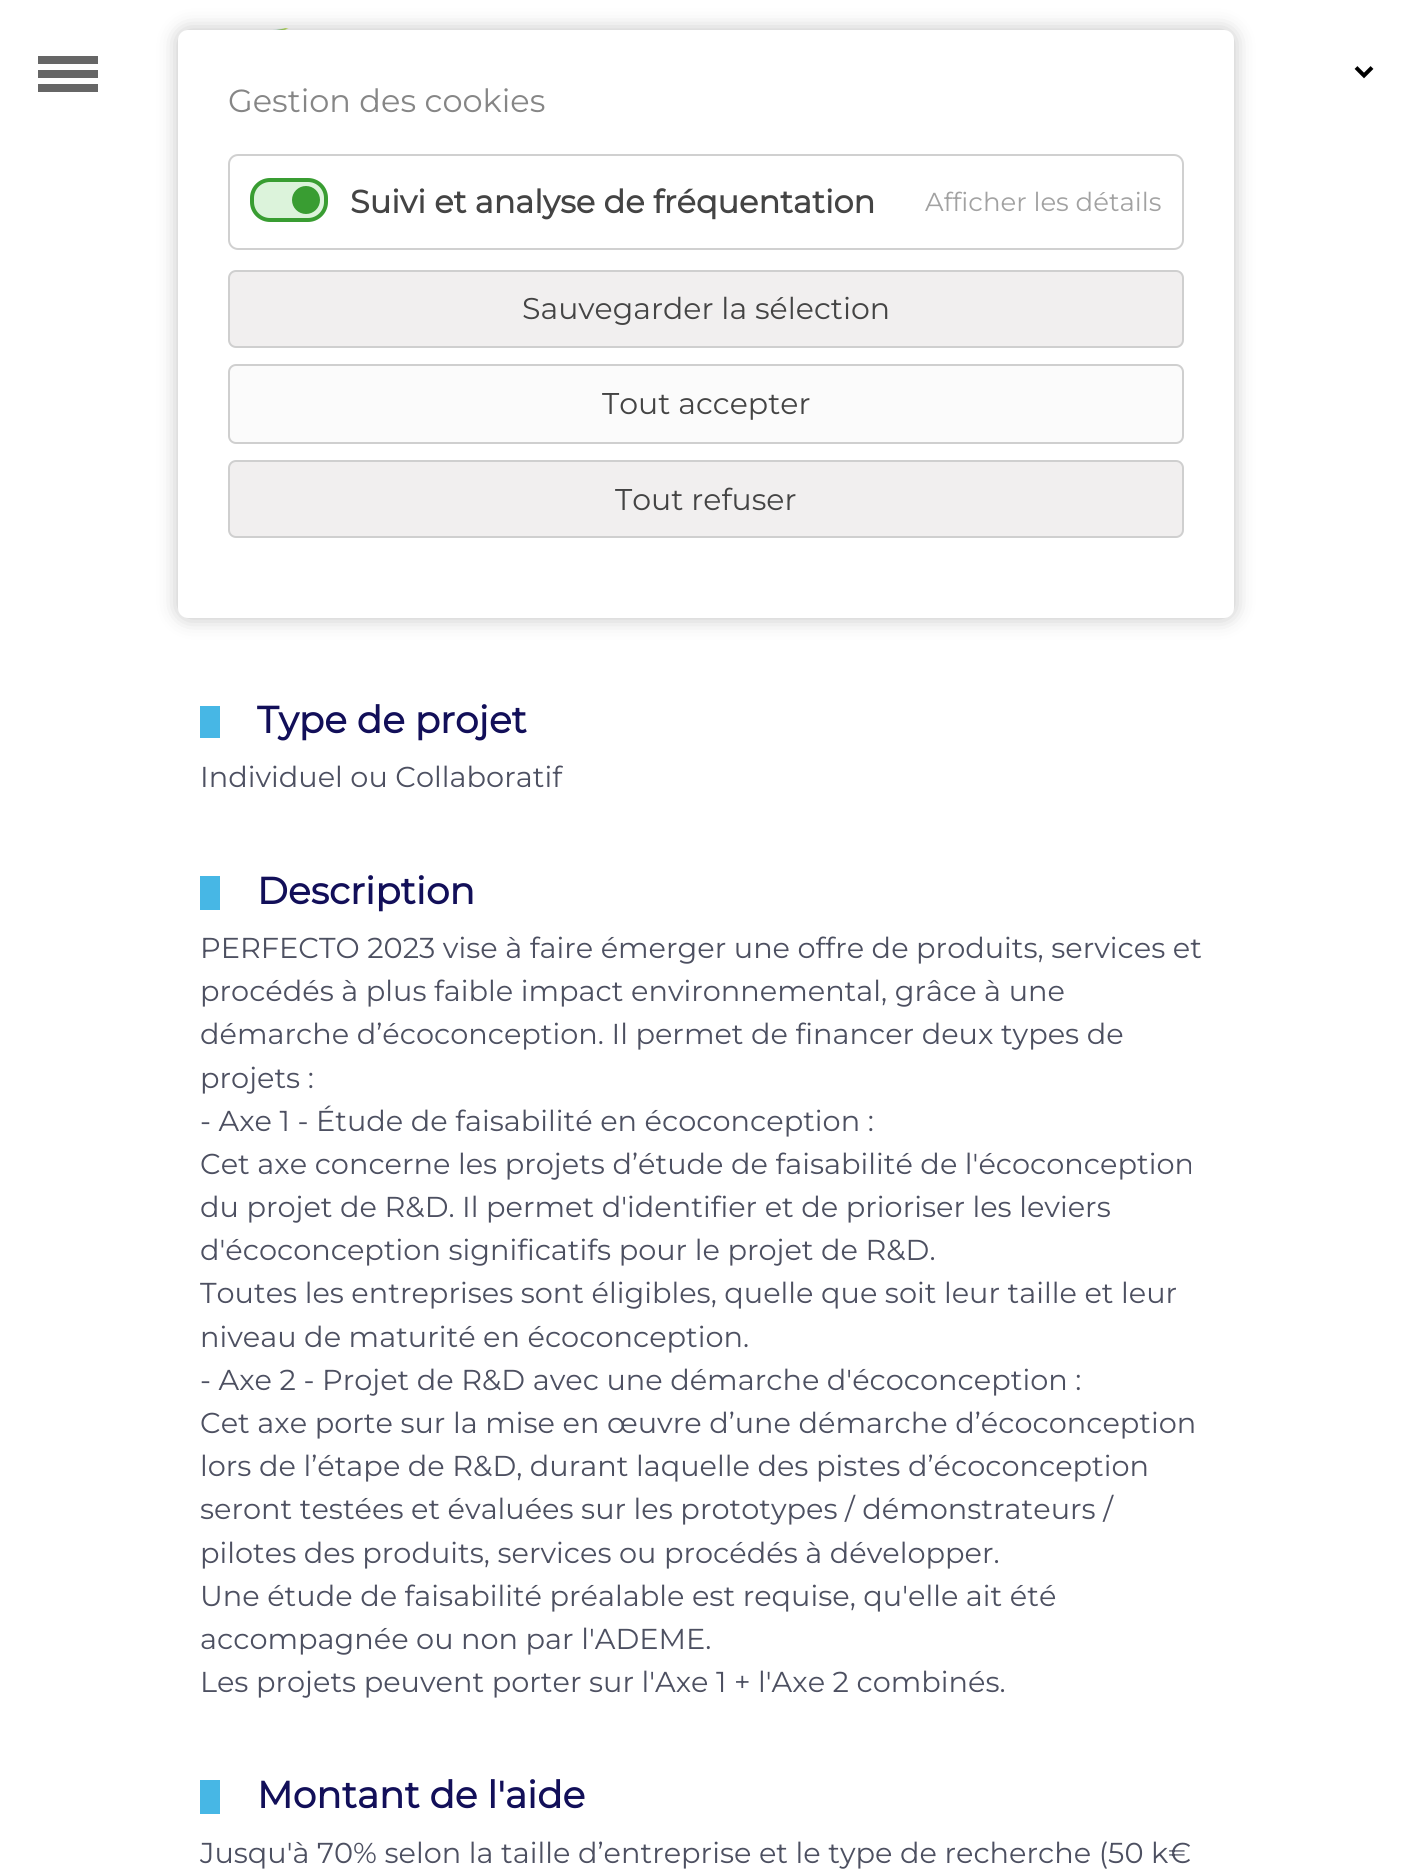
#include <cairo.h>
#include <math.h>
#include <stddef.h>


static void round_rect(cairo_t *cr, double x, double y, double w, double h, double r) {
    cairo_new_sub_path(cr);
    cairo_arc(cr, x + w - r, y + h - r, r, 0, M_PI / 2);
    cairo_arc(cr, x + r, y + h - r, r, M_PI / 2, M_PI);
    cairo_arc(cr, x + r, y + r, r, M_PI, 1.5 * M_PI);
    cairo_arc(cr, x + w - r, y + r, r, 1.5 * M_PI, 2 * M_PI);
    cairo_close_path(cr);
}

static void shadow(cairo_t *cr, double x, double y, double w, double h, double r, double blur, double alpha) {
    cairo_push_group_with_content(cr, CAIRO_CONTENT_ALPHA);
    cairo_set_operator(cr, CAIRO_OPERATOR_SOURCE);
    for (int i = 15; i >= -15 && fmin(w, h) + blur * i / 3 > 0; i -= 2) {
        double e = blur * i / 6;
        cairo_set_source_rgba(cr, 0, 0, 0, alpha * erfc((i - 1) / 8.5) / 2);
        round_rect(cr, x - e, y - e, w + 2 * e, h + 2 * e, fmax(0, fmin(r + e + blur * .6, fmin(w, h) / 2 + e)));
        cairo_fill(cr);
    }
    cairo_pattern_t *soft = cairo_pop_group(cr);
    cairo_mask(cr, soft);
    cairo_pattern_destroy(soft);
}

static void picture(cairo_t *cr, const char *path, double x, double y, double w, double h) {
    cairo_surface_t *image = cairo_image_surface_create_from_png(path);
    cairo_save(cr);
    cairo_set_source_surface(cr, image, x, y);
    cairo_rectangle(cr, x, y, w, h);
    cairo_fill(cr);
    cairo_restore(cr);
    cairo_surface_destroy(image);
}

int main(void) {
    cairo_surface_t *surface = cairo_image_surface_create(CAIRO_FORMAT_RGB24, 1411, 1870);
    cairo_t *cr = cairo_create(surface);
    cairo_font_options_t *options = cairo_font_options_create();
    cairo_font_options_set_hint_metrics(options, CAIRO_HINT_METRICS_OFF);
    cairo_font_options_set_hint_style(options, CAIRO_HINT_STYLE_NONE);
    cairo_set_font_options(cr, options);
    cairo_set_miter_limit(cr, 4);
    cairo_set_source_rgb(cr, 1, 1, 1);
    cairo_paint(cr);
    picture(cr, "img1.png", 273, 28, 16, 2);
    cairo_set_source_rgb(cr, 0, 0, 0);
    shadow(cr, 178, 30, 1056, 588, 10, 10, 0.25);
    cairo_set_source_rgb(cr, 1, 1, 1);
    round_rect(cr, 178, 30, 1056, 588, 10);
    cairo_fill(cr);
    cairo_select_font_face(cr, "Montserrat", CAIRO_FONT_SLANT_NORMAL, CAIRO_FONT_WEIGHT_NORMAL);
    cairo_set_font_size(cr, 32);
    cairo_set_source_rgb(cr, 0.525, 0.525, 0.525);
    cairo_move_to(cr, 228, 112);
    cairo_show_text(cr, "Gestion des cookies");
    round_rect(cr, 229, 155, 954, 94, 9);
    cairo_set_source_rgb(cr, 0.816, 0.816, 0.816);
    cairo_stroke(cr);
    cairo_set_source_rgb(cr, 0.863, 0.953, 0.859);
    round_rect(cr, 252, 180, 74, 40, 18);
    cairo_fill_preserve(cr);
    cairo_set_source_rgb(cr, 0.224, 0.616, 0.196);
    cairo_set_line_width(cr, 4);
    cairo_stroke(cr);
    cairo_arc(cr, 306, 200, 14, 0, 2 * M_PI);
    cairo_fill(cr);
    cairo_select_font_face(cr, "Montserrat", CAIRO_FONT_SLANT_NORMAL, CAIRO_FONT_WEIGHT_BOLD);
    cairo_set_source_rgb(cr, 0.267, 0.267, 0.267);
    cairo_move_to(cr, 350, 213);
    cairo_show_text(cr, "Suivi et analyse de fréquentation");
    cairo_select_font_face(cr, "Montserrat", CAIRO_FONT_SLANT_NORMAL, CAIRO_FONT_WEIGHT_NORMAL);
    cairo_set_font_size(cr, 26);
    cairo_set_source_rgb(cr, 0.635, 0.635, 0.635);
    cairo_move_to(cr, 925, 211);
    cairo_show_text(cr, "Afficher les détails");
    cairo_set_source_rgb(cr, 0.945, 0.937, 0.937);
    round_rect(cr, 229, 271, 954, 76, 7);
    cairo_fill_preserve(cr);
    cairo_set_source_rgb(cr, 0.812, 0.812, 0.812);
    cairo_set_line_width(cr, 2);
    cairo_stroke(cr);
    cairo_set_font_size(cr, 30);
    cairo_set_source_rgb(cr, 0.267, 0.267, 0.267);
    cairo_move_to(cr, 522, 319);
    cairo_show_text(cr, "Sauvegarder la sélection");
    cairo_set_source_rgb(cr, 0.984, 0.984, 0.984);
    round_rect(cr, 229, 365, 954, 78, 7);
    cairo_fill_preserve(cr);
    cairo_set_source_rgb(cr, 0.812, 0.812, 0.812);
    cairo_stroke(cr);
    cairo_set_source_rgb(cr, 0.267, 0.267, 0.267);
    cairo_move_to(cr, 602, 414);
    cairo_show_text(cr, "Tout accepter");
    cairo_set_source_rgb(cr, 0.945, 0.937, 0.937);
    round_rect(cr, 229, 461, 954, 76, 7);
    cairo_fill_preserve(cr);
    cairo_set_source_rgb(cr, 0.812, 0.812, 0.812);
    cairo_stroke(cr);
    cairo_set_source_rgb(cr, 0.267, 0.267, 0.267);
    cairo_move_to(cr, 615, 510);
    cairo_show_text(cr, "Tout refuser");
    cairo_set_source_rgb(cr, 0.4, 0.4, 0.4);
    cairo_rectangle(cr, 38, 56, 60, 8);
    cairo_fill(cr);
    cairo_rectangle(cr, 38, 70, 60, 8);
    cairo_fill(cr);
    cairo_rectangle(cr, 38, 84, 60, 8);
    cairo_fill(cr);
    cairo_new_path(cr);
    cairo_move_to(cr, 1356, 67.5);
    cairo_line_to(cr, 1364, 75.5);
    cairo_line_to(cr, 1372, 67.5);
    cairo_set_source_rgb(cr, 0, 0, 0);
    cairo_set_line_width(cr, 4);
    cairo_stroke(cr);
    cairo_set_source_rgb(cr, 0.278, 0.718, 0.898);
    cairo_rectangle(cr, 200, 706, 20, 32);
    cairo_fill(cr);
    cairo_select_font_face(cr, "Montserrat", CAIRO_FONT_SLANT_NORMAL, CAIRO_FONT_WEIGHT_BOLD);
    cairo_set_font_size(cr, 37.5);
    cairo_set_source_rgb(cr, 0.071, 0.059, 0.349);
    cairo_move_to(cr, 257, 733);
    cairo_show_text(cr, "Type de projet");
    cairo_select_font_face(cr, "Montserrat", CAIRO_FONT_SLANT_NORMAL, CAIRO_FONT_WEIGHT_NORMAL);
    cairo_set_font_size(cr, 28.8);
    cairo_set_source_rgb(cr, 0.302, 0.314, 0.38);
    cairo_move_to(cr, 200, 787);
    cairo_show_text(cr, "Individuel ou Collaboratif");
    cairo_set_source_rgb(cr, 0.278, 0.718, 0.898);
    cairo_rectangle(cr, 200, 876, 20, 34);
    cairo_fill(cr);
    cairo_select_font_face(cr, "Montserrat", CAIRO_FONT_SLANT_NORMAL, CAIRO_FONT_WEIGHT_BOLD);
    cairo_set_font_size(cr, 37.5);
    cairo_set_source_rgb(cr, 0.071, 0.059, 0.349);
    cairo_move_to(cr, 257, 904);
    cairo_show_text(cr, "Description");
    cairo_select_font_face(cr, "Montserrat", CAIRO_FONT_SLANT_NORMAL, CAIRO_FONT_WEIGHT_NORMAL);
    cairo_set_font_size(cr, 28.8);
    cairo_set_source_rgb(cr, 0.302, 0.314, 0.38);
    cairo_move_to(cr, 200, 958);
    cairo_show_text(cr, "PERFECTO 2023 vise à faire émerger une offre de produits, services et");
    cairo_move_to(cr, 200, 1001);
    cairo_show_text(cr, "procédés à plus faible impact environnemental, grâce à une");
    cairo_move_to(cr, 200, 1044);
    cairo_show_text(cr, "démarche d’écoconception. Il permet de financer deux types de");
    cairo_move_to(cr, 200, 1088);
    cairo_show_text(cr, "projets :");
    cairo_move_to(cr, 200, 1131);
    cairo_show_text(cr, "- Axe 1 - Étude de faisabilité en écoconception :");
    cairo_move_to(cr, 200, 1174);
    cairo_show_text(cr, "Cet axe concerne les projets d’étude de faisabilité de l'écoconception");
    cairo_move_to(cr, 200, 1217);
    cairo_show_text(cr, "du projet de R&D. Il permet d'identifier et de prioriser les leviers");
    cairo_move_to(cr, 200, 1260);
    cairo_show_text(cr, "d'écoconception significatifs pour le projet de R&D.");
    cairo_move_to(cr, 200, 1303);
    cairo_show_text(cr, "Toutes les entreprises sont éligibles, quelle que soit leur taille et leur");
    cairo_move_to(cr, 200, 1347);
    cairo_show_text(cr, "niveau de maturité en écoconception.");
    cairo_move_to(cr, 200, 1390);
    cairo_show_text(cr, "- Axe 2 - Projet de R&D avec une démarche d'écoconception :");
    cairo_move_to(cr, 200, 1433);
    cairo_show_text(cr, "Cet axe porte sur la mise en œuvre d’une démarche d’écoconception");
    cairo_move_to(cr, 200, 1476);
    cairo_show_text(cr, "lors de l’étape de R&D, durant laquelle des pistes d’écoconception");
    cairo_move_to(cr, 200, 1519);
    cairo_show_text(cr, "seront testées et évaluées sur les prototypes / démonstrateurs /");
    cairo_move_to(cr, 200, 1563);
    cairo_show_text(cr, "pilotes des produits, services ou procédés à développer.");
    cairo_move_to(cr, 200, 1606);
    cairo_show_text(cr, "Une étude de faisabilité préalable est requise, qu'elle ait été");
    cairo_move_to(cr, 200, 1649);
    cairo_show_text(cr, "accompagnée ou non par l'ADEME.");
    cairo_move_to(cr, 200, 1692);
    cairo_show_text(cr, "Les projets peuvent porter sur l'Axe 1 + l'Axe 2 combinés.");
    cairo_set_source_rgb(cr, 0.278, 0.718, 0.898);
    cairo_rectangle(cr, 200, 1780, 20, 34);
    cairo_fill(cr);
    cairo_select_font_face(cr, "Montserrat", CAIRO_FONT_SLANT_NORMAL, CAIRO_FONT_WEIGHT_BOLD);
    cairo_set_font_size(cr, 37.5);
    cairo_set_source_rgb(cr, 0.071, 0.059, 0.349);
    cairo_move_to(cr, 257, 1808);
    cairo_show_text(cr, "Montant de l'aide");
    cairo_select_font_face(cr, "Montserrat", CAIRO_FONT_SLANT_NORMAL, CAIRO_FONT_WEIGHT_NORMAL);
    cairo_set_font_size(cr, 28.8);
    cairo_set_source_rgb(cr, 0.302, 0.314, 0.38);
    cairo_move_to(cr, 200, 1863);
    cairo_show_text(cr, "Jusqu'à 70% selon la taille d’entreprise et le type de recherche (50 k€");
    cairo_surface_write_to_png(surface, "page.png");
    cairo_font_options_destroy(options);
    cairo_destroy(cr);
    cairo_surface_destroy(surface);
    return 0;
}
